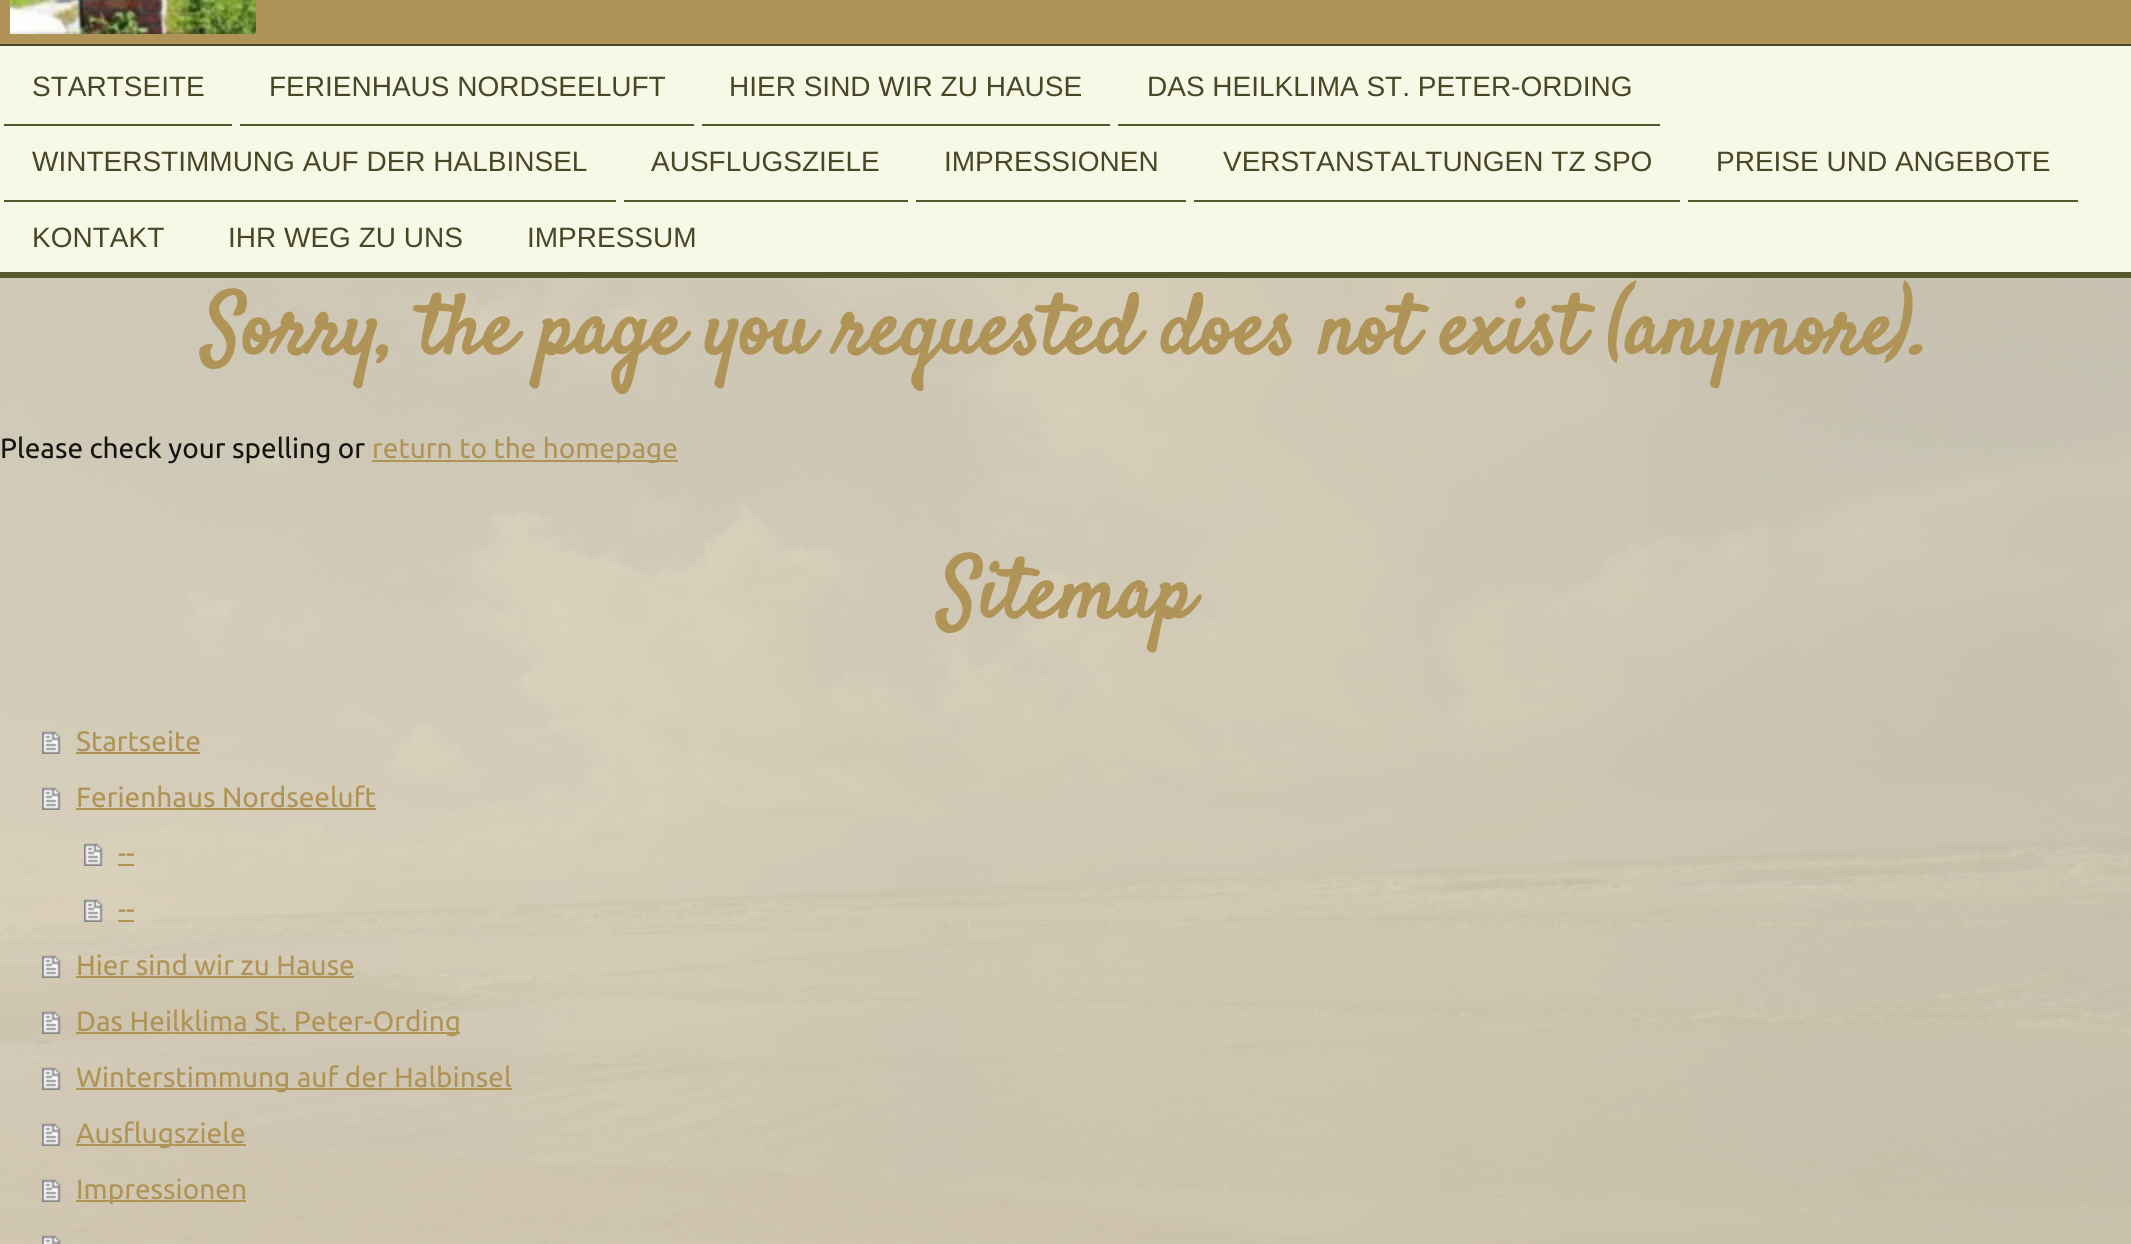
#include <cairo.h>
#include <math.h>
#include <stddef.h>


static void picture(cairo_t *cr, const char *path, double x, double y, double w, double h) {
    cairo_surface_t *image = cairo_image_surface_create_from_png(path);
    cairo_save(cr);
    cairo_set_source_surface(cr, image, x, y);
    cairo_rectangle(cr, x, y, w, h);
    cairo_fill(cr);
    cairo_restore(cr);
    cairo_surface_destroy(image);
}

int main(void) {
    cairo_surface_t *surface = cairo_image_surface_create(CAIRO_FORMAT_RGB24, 2131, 1244);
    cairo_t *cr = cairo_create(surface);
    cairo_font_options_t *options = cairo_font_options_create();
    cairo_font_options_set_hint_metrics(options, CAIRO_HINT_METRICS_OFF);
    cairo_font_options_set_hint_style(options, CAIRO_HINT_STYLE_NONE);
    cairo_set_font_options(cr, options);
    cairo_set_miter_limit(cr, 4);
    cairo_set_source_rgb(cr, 1, 1, 1);
    cairo_paint(cr);
    picture(cr, "img1.png", 0, 278, 2131, 966);
    cairo_set_source_rgb(cr, 0.965, 0.969, 0.902);
    cairo_rectangle(cr, 0, 46, 2131, 226);
    cairo_fill(cr);
    cairo_set_source_rgb(cr, 0.69, 0.576, 0.337);
    cairo_rectangle(cr, 0, 0, 2131, 44);
    cairo_fill(cr);
    picture(cr, "img2.png", 10, 0, 246, 34);
    cairo_set_source_rgb(cr, 0.275, 0.282, 0.149);
    cairo_rectangle(cr, 0, 44, 2131, 2);
    cairo_fill(cr);
    cairo_set_source_rgb(cr, 0.337, 0.349, 0.173);
    cairo_rectangle(cr, 0, 272, 2131, 6);
    cairo_fill(cr);
    cairo_rectangle(cr, 4, 124, 228, 2);
    cairo_fill(cr);
    cairo_select_font_face(cr, "Liberation Sans", CAIRO_FONT_SLANT_NORMAL, CAIRO_FONT_WEIGHT_NORMAL);
    cairo_set_font_size(cr, 28);
    cairo_set_source_rgb(cr, 0.275, 0.282, 0.149);
    cairo_move_to(cr, 32, 96);
    cairo_show_text(cr, "STARTSEITE");
    cairo_set_source_rgb(cr, 0.337, 0.349, 0.173);
    cairo_rectangle(cr, 240, 124, 454, 2);
    cairo_fill(cr);
    cairo_set_source_rgb(cr, 0.275, 0.282, 0.149);
    cairo_move_to(cr, 269, 96);
    cairo_show_text(cr, "FERIENHAUS NORDSEELUFT");
    cairo_set_source_rgb(cr, 0.337, 0.349, 0.173);
    cairo_rectangle(cr, 702, 124, 408, 2);
    cairo_fill(cr);
    cairo_set_source_rgb(cr, 0.275, 0.282, 0.149);
    cairo_move_to(cr, 729, 96);
    cairo_show_text(cr, "HIER SIND WIR ZU HAUSE");
    cairo_set_source_rgb(cr, 0.337, 0.349, 0.173);
    cairo_rectangle(cr, 1118, 124, 542, 2);
    cairo_fill(cr);
    cairo_set_source_rgb(cr, 0.275, 0.282, 0.149);
    cairo_move_to(cr, 1147, 96);
    cairo_show_text(cr, "DAS HEILKLIMA ST. PETER-ORDING");
    cairo_set_source_rgb(cr, 0.337, 0.349, 0.173);
    cairo_rectangle(cr, 4, 200, 612, 2);
    cairo_fill(cr);
    cairo_set_source_rgb(cr, 0.275, 0.282, 0.149);
    cairo_move_to(cr, 32, 171);
    cairo_show_text(cr, "WINTERSTIMMUNG AUF DER HALBINSEL");
    cairo_set_source_rgb(cr, 0.337, 0.349, 0.173);
    cairo_rectangle(cr, 624, 200, 284, 2);
    cairo_fill(cr);
    cairo_set_source_rgb(cr, 0.275, 0.282, 0.149);
    cairo_move_to(cr, 651, 171);
    cairo_show_text(cr, "AUSFLUGSZIELE");
    cairo_set_source_rgb(cr, 0.337, 0.349, 0.173);
    cairo_rectangle(cr, 916, 200, 270, 2);
    cairo_fill(cr);
    cairo_set_source_rgb(cr, 0.275, 0.282, 0.149);
    cairo_move_to(cr, 944, 171);
    cairo_show_text(cr, "IMPRESSIONEN");
    cairo_set_source_rgb(cr, 0.337, 0.349, 0.173);
    cairo_rectangle(cr, 1194, 200, 486, 2);
    cairo_fill(cr);
    cairo_set_source_rgb(cr, 0.275, 0.282, 0.149);
    cairo_move_to(cr, 1223, 171);
    cairo_show_text(cr, "VERSTANSTALTUNGEN TZ SPO");
    cairo_set_source_rgb(cr, 0.337, 0.349, 0.173);
    cairo_rectangle(cr, 1688, 200, 390, 2);
    cairo_fill(cr);
    cairo_set_source_rgb(cr, 0.275, 0.282, 0.149);
    cairo_move_to(cr, 1716, 171);
    cairo_show_text(cr, "PREISE UND ANGEBOTE");
    cairo_move_to(cr, 32, 247);
    cairo_show_text(cr, "KONTAKT");
    cairo_move_to(cr, 228, 247);
    cairo_show_text(cr, "IHR WEG ZU UNS");
    cairo_move_to(cr, 527, 247);
    cairo_show_text(cr, "IMPRESSUM");
    cairo_set_source_rgba(cr, 0.851, 0.812, 0.722, 0.9);
    cairo_rectangle(cr, 0, 278, 2131, 966);
    cairo_fill(cr);
    cairo_select_font_face(cr, "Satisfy", CAIRO_FONT_SLANT_NORMAL, CAIRO_FONT_WEIGHT_BOLD);
    cairo_set_font_size(cr, 84);
    cairo_set_source_rgb(cr, 0.69, 0.576, 0.337);
    cairo_move_to(cr, 203, 353);
    cairo_show_text(cr, "Sorry, the page you requested does not exist (anymore).");
    cairo_select_font_face(cr, "Ubuntu", CAIRO_FONT_SLANT_NORMAL, CAIRO_FONT_WEIGHT_NORMAL);
    cairo_set_font_size(cr, 28);
    cairo_set_source_rgb(cr, 0.086, 0.082, 0.071);
    cairo_move_to(cr, 0, 458);
    cairo_show_text(cr, "Please check your spelling or");
    cairo_set_source_rgb(cr, 0.69, 0.576, 0.337);
    cairo_rectangle(cr, 372, 460, 306, 2);
    cairo_fill(cr);
    cairo_move_to(cr, 372, 458);
    cairo_show_text(cr, "return to the homepage");
    cairo_select_font_face(cr, "Satisfy", CAIRO_FONT_SLANT_NORMAL, CAIRO_FONT_WEIGHT_BOLD);
    cairo_set_font_size(cr, 84);
    cairo_move_to(cr, 939, 617);
    cairo_show_text(cr, "Sitemap");
    picture(cr, "img3.png", 42, 731, 19, 23);
    cairo_select_font_face(cr, "Ubuntu", CAIRO_FONT_SLANT_NORMAL, CAIRO_FONT_WEIGHT_NORMAL);
    cairo_set_font_size(cr, 28);
    cairo_move_to(cr, 76, 751);
    cairo_show_text(cr, "Startseite");
    cairo_rectangle(cr, 76, 752, 124, 2);
    cairo_fill(cr);
    picture(cr, "img4.png", 42, 787, 19, 23);
    cairo_move_to(cr, 76, 807);
    cairo_show_text(cr, "Ferienhaus Nordseeluft");
    cairo_rectangle(cr, 76, 808, 300, 2);
    cairo_fill(cr);
    picture(cr, "img5.png", 84, 843, 19, 23);
    cairo_move_to(cr, 118, 863);
    cairo_show_text(cr, "--");
    cairo_rectangle(cr, 118, 864, 16, 2);
    cairo_fill(cr);
    picture(cr, "img6.png", 84, 899, 19, 23);
    cairo_move_to(cr, 118, 919);
    cairo_show_text(cr, "--");
    cairo_rectangle(cr, 118, 920, 16, 2);
    cairo_fill(cr);
    picture(cr, "img7.png", 42, 955, 19, 23);
    cairo_move_to(cr, 76, 975);
    cairo_show_text(cr, "Hier sind wir zu Hause");
    cairo_rectangle(cr, 76, 976, 278, 2);
    cairo_fill(cr);
    picture(cr, "img8.png", 42, 1011, 19, 23);
    cairo_rectangle(cr, 76, 1032, 384, 2);
    cairo_fill(cr);
    cairo_move_to(cr, 76, 1031);
    cairo_show_text(cr, "Das Heilklima St. Peter-Ording");
    picture(cr, "img9.png", 42, 1067, 19, 23);
    cairo_rectangle(cr, 76, 1088, 436, 2);
    cairo_fill(cr);
    cairo_move_to(cr, 76, 1087);
    cairo_show_text(cr, "Winterstimmung auf der Halbinsel");
    picture(cr, "img10.png", 42, 1123, 19, 23);
    cairo_rectangle(cr, 76, 1144, 170, 2);
    cairo_fill(cr);
    cairo_move_to(cr, 76, 1143);
    cairo_show_text(cr, "Ausflugsziele");
    picture(cr, "img11.png", 42, 1179, 19, 23);
    cairo_rectangle(cr, 76, 1200, 170, 2);
    cairo_fill(cr);
    cairo_move_to(cr, 76, 1199);
    cairo_show_text(cr, "Impressionen");
    picture(cr, "img12.png", 42, 1235, 19, 9);
    cairo_surface_write_to_png(surface, "page.png");
    cairo_font_options_destroy(options);
    cairo_destroy(cr);
    cairo_surface_destroy(surface);
    return 0;
}
